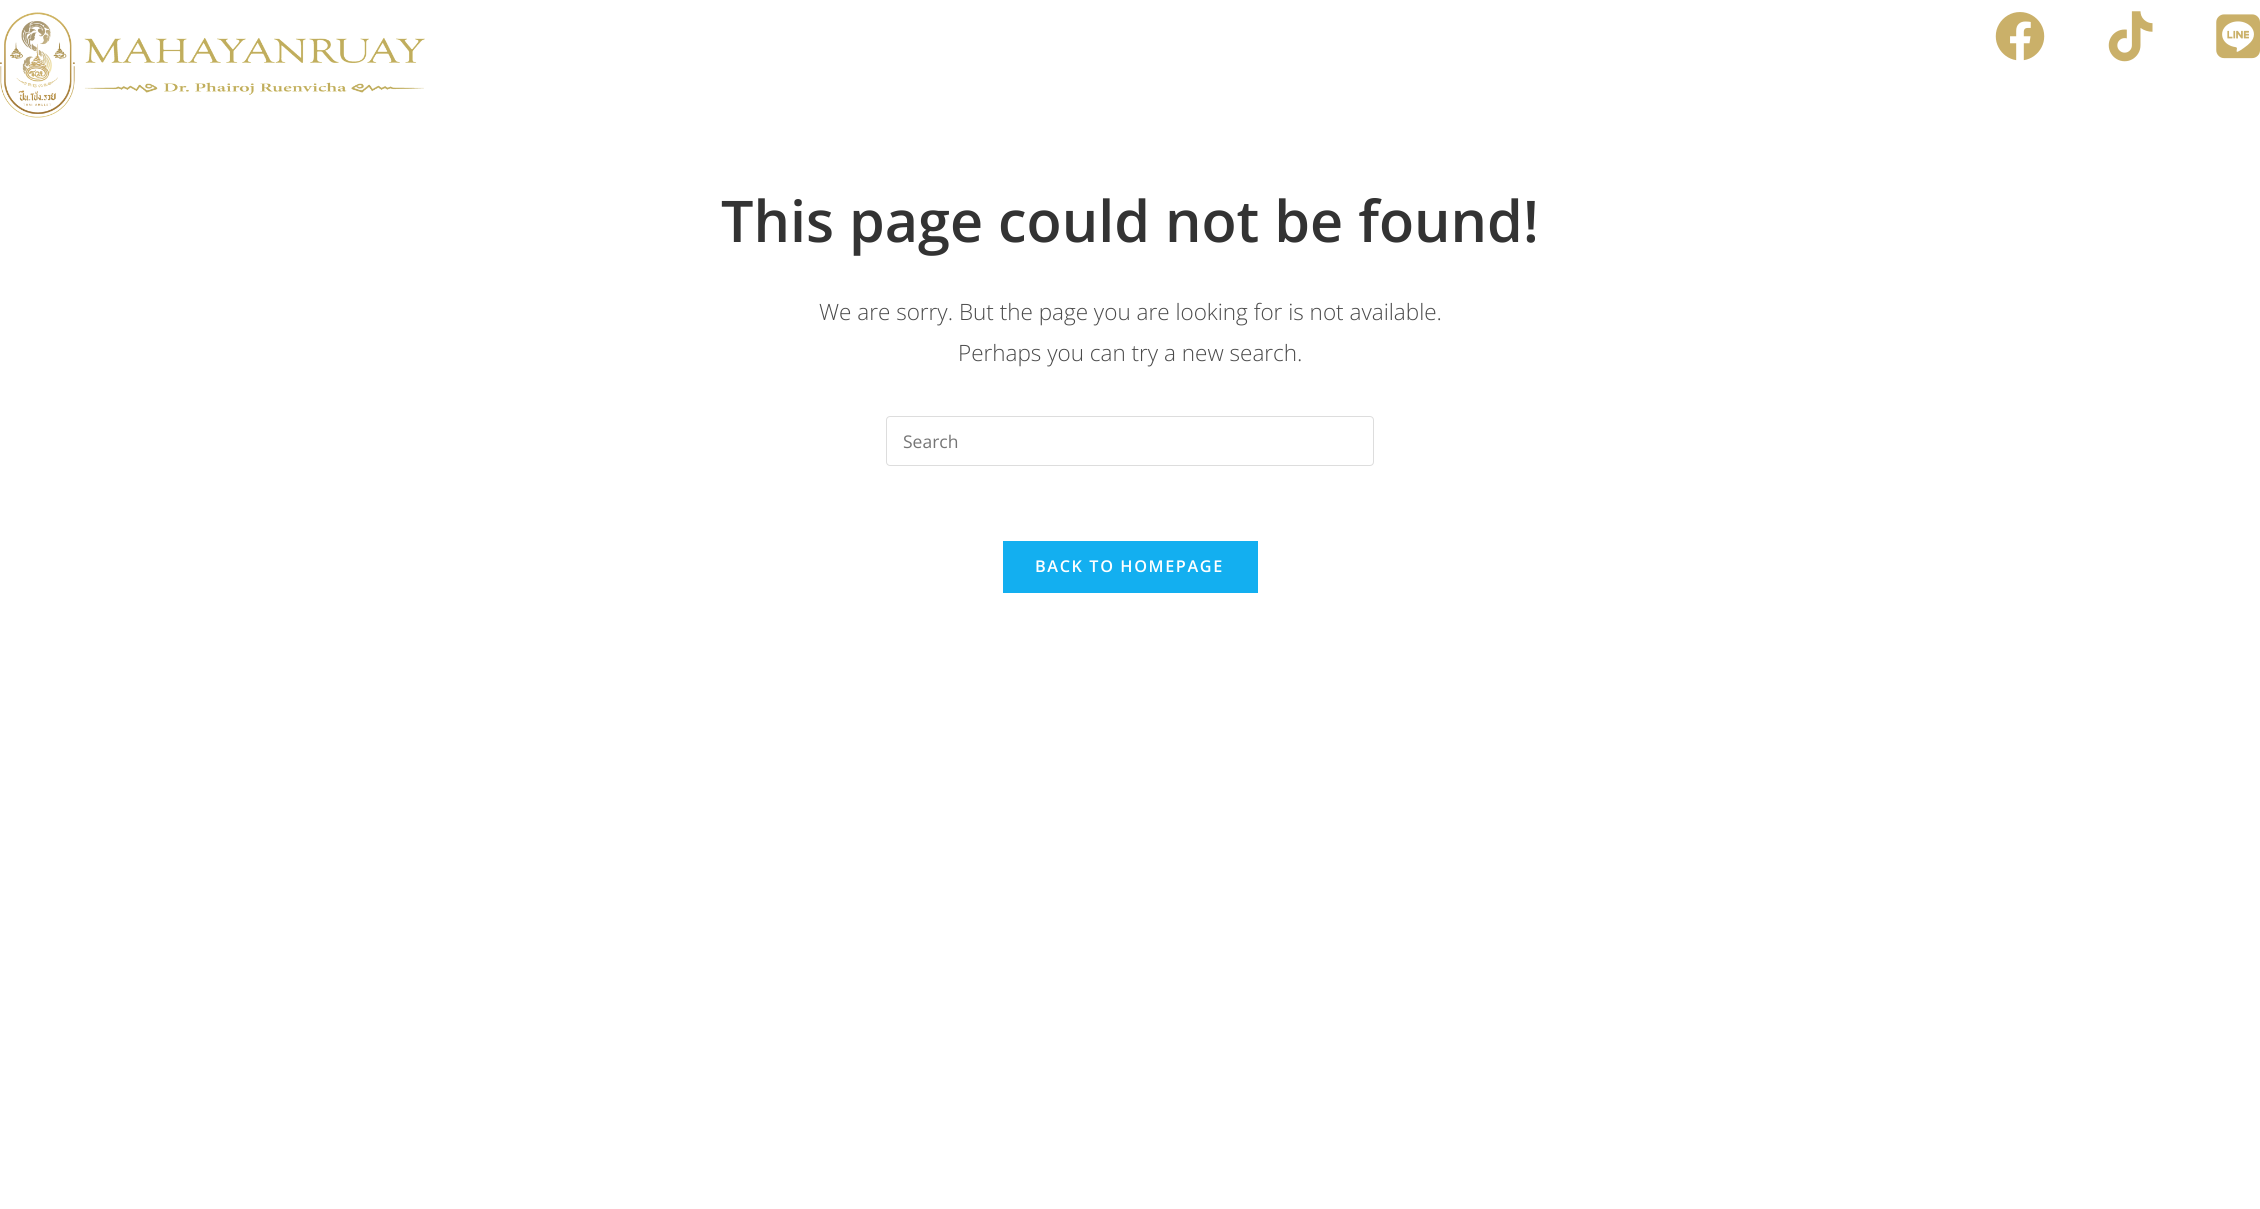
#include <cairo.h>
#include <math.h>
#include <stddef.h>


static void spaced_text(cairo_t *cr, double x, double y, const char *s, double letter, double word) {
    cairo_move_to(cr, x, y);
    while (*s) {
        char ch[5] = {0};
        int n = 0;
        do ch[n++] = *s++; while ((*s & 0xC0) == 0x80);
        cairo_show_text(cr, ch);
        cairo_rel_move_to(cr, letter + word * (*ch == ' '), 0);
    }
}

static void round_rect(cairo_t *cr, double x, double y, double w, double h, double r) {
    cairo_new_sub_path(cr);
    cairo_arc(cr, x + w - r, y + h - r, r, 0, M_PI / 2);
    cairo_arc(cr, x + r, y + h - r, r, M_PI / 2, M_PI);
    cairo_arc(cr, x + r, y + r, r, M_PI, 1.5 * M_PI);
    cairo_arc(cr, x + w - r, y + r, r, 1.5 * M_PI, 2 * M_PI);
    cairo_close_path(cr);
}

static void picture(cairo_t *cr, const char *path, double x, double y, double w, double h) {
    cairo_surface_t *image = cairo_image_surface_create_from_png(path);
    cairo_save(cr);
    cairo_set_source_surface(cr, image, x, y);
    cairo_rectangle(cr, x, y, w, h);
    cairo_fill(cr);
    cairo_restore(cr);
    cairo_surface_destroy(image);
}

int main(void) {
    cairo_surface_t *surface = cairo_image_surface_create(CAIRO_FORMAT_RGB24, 2260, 1209);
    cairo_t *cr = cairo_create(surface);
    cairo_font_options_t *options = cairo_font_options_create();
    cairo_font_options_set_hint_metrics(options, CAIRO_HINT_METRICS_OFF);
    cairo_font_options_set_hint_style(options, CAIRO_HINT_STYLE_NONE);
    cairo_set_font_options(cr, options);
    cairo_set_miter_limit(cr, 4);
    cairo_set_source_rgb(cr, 1, 1, 1);
    cairo_paint(cr);
    picture(cr, "img1.png", 0, 12, 425, 106);
    picture(cr, "img2.png", 1995, 12, 50, 49);
    picture(cr, "img3.png", 2108, 11, 45, 51);
    picture(cr, "img4.png", 2216, 14, 44, 45);
    cairo_select_font_face(cr, "Open Sans SemiBold", CAIRO_FONT_SLANT_NORMAL, CAIRO_FONT_WEIGHT_NORMAL);
    cairo_set_font_size(cr, 57.5);
    cairo_set_source_rgb(cr, 0.2, 0.2, 0.2);
    cairo_move_to(cr, 721, 242);
    cairo_show_text(cr, "This page could not be found!");
    cairo_select_font_face(cr, "Open Sans Light", CAIRO_FONT_SLANT_NORMAL, CAIRO_FONT_WEIGHT_NORMAL);
    cairo_set_font_size(cr, 22.5);
    cairo_set_source_rgb(cr, 0.29, 0.29, 0.29);
    cairo_move_to(cr, 819, 320);
    cairo_show_text(cr, "We are sorry. But the page you are looking for is not available.");
    cairo_move_to(cr, 958, 361);
    cairo_show_text(cr, "Perhaps you can try a new search.");
    round_rect(cr, 886.5, 416.5, 487, 49, 3.5);
    cairo_set_source_rgb(cr, 0.867, 0.867, 0.867);
    cairo_set_line_width(cr, 1);
    cairo_stroke(cr);
    cairo_select_font_face(cr, "Open Sans", CAIRO_FONT_SLANT_NORMAL, CAIRO_FONT_WEIGHT_NORMAL);
    cairo_set_font_size(cr, 17.5);
    cairo_set_source_rgb(cr, 0.459, 0.459, 0.459);
    cairo_move_to(cr, 903, 448);
    cairo_show_text(cr, "Search");
    cairo_set_source_rgb(cr, 0.075, 0.686, 0.941);
    cairo_rectangle(cr, 1003, 541, 255, 52);
    cairo_fill(cr);
    cairo_select_font_face(cr, "Open Sans SemiBold", CAIRO_FONT_SLANT_NORMAL, CAIRO_FONT_WEIGHT_NORMAL);
    cairo_set_font_size(cr, 16.25);
    cairo_set_source_rgb(cr, 1, 1, 1);
    spaced_text(cr, 1035, 572, "BACK TO HOMEPAGE", 1.6, 0);
    cairo_surface_write_to_png(surface, "page.png");
    cairo_font_options_destroy(options);
    cairo_destroy(cr);
    cairo_surface_destroy(surface);
    return 0;
}
